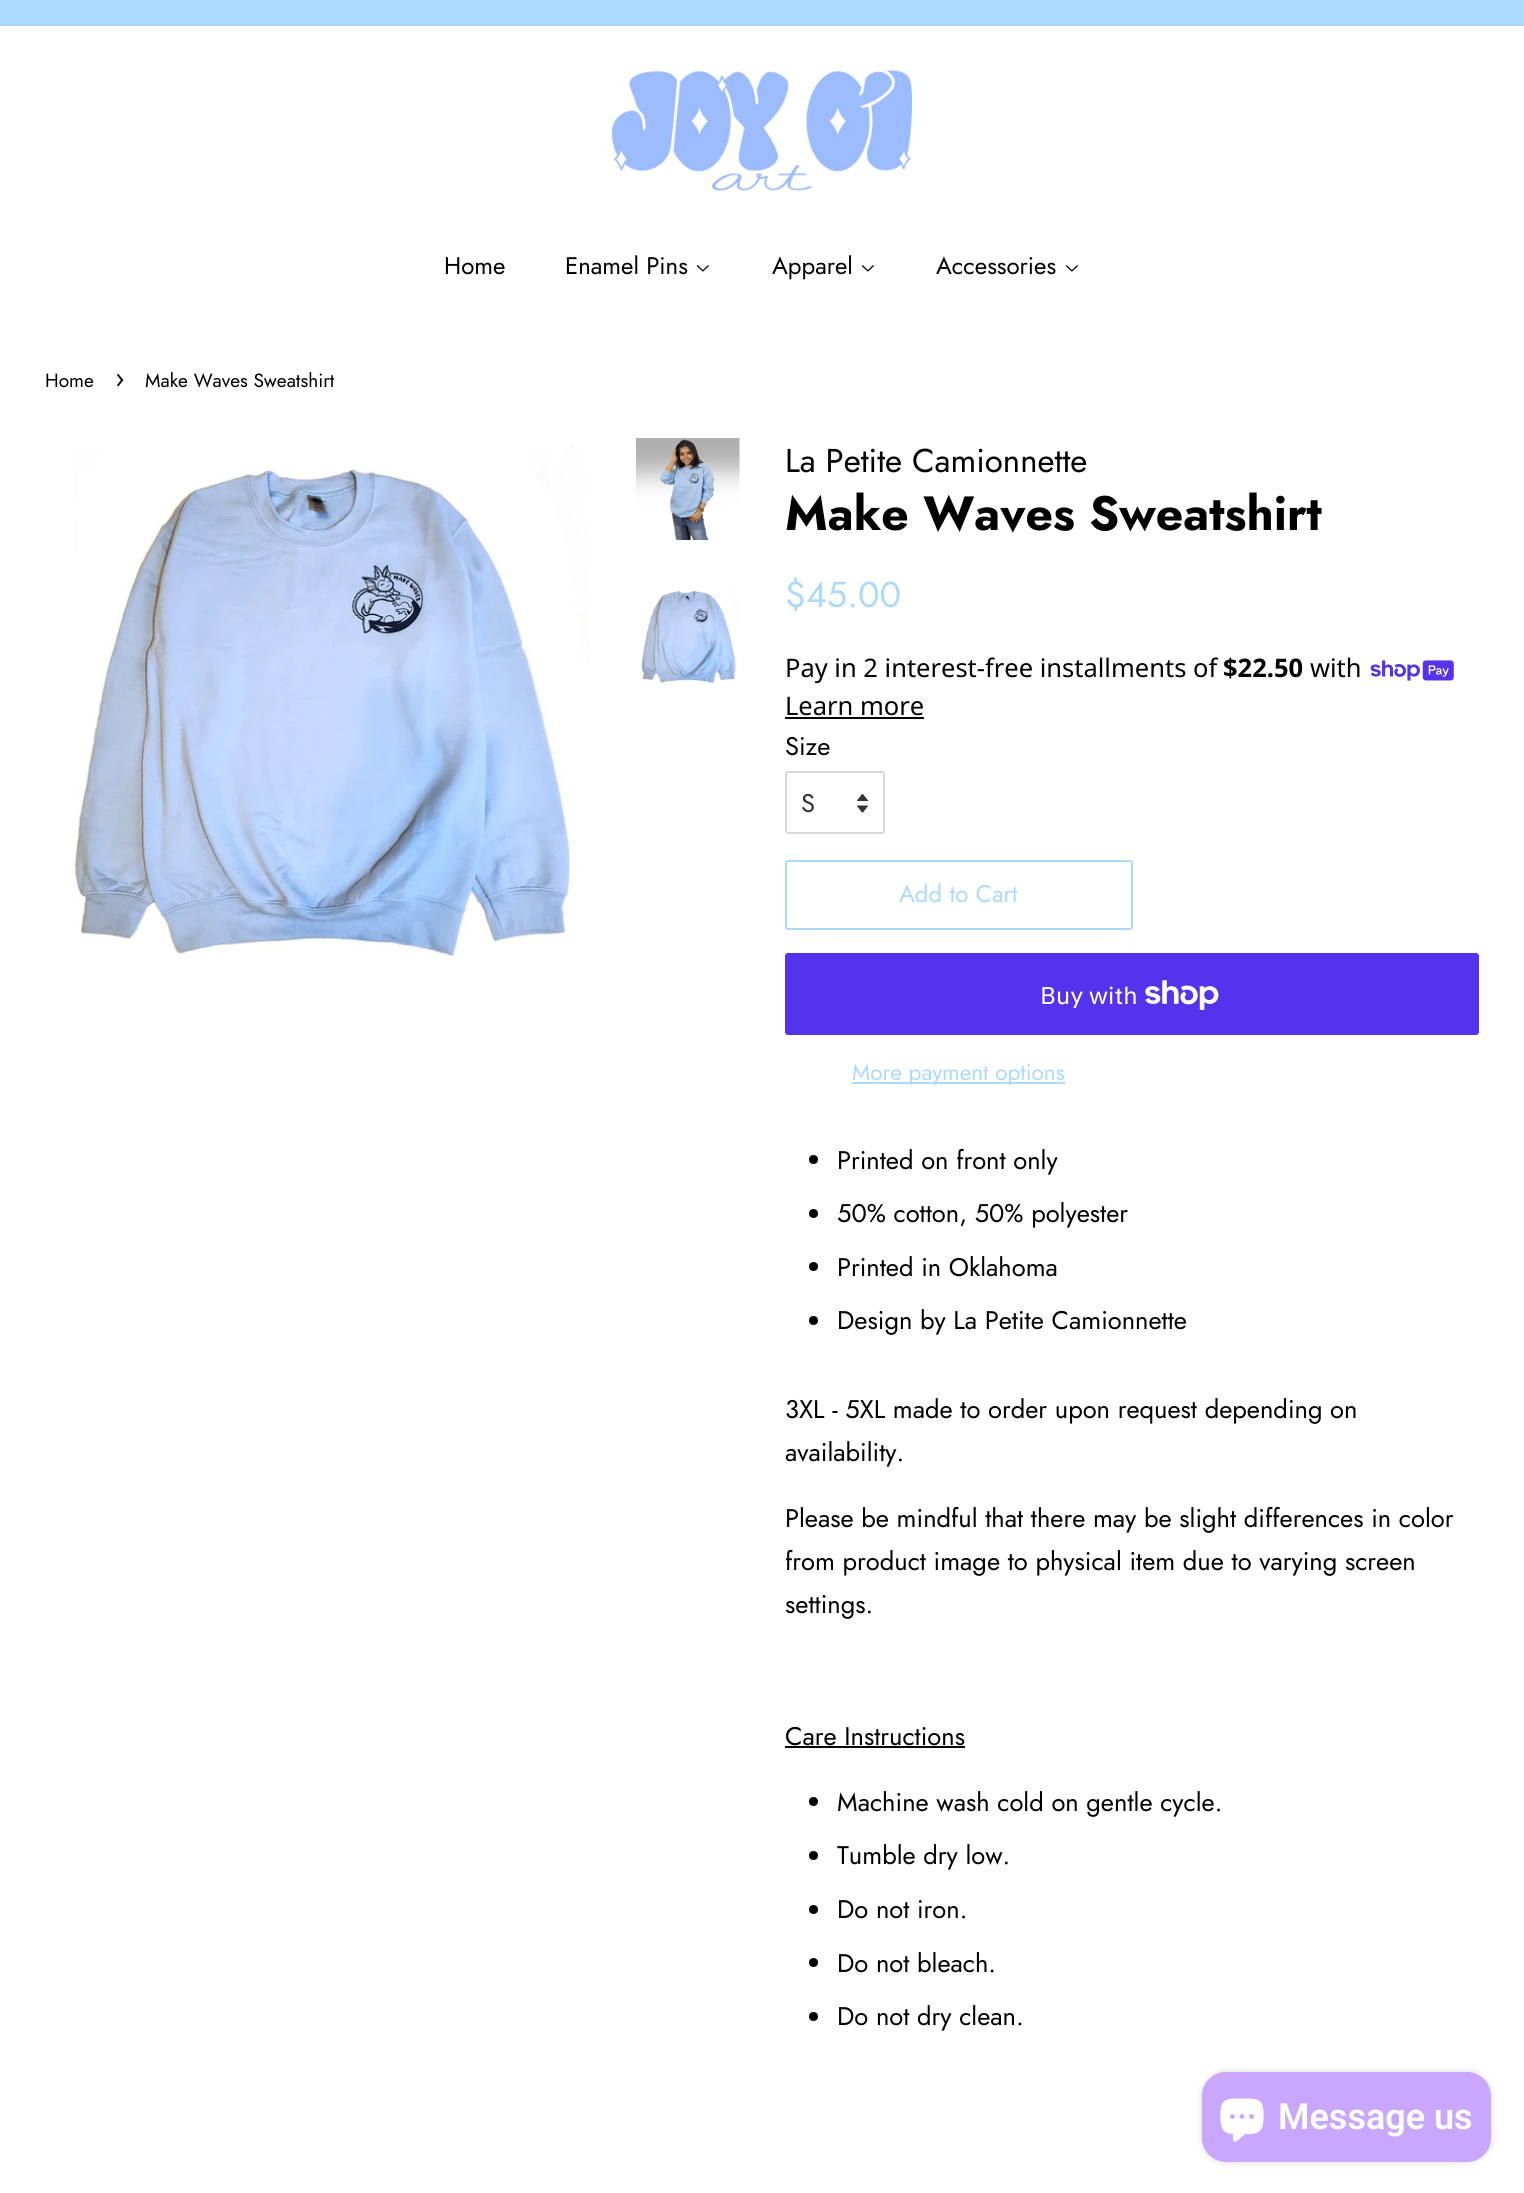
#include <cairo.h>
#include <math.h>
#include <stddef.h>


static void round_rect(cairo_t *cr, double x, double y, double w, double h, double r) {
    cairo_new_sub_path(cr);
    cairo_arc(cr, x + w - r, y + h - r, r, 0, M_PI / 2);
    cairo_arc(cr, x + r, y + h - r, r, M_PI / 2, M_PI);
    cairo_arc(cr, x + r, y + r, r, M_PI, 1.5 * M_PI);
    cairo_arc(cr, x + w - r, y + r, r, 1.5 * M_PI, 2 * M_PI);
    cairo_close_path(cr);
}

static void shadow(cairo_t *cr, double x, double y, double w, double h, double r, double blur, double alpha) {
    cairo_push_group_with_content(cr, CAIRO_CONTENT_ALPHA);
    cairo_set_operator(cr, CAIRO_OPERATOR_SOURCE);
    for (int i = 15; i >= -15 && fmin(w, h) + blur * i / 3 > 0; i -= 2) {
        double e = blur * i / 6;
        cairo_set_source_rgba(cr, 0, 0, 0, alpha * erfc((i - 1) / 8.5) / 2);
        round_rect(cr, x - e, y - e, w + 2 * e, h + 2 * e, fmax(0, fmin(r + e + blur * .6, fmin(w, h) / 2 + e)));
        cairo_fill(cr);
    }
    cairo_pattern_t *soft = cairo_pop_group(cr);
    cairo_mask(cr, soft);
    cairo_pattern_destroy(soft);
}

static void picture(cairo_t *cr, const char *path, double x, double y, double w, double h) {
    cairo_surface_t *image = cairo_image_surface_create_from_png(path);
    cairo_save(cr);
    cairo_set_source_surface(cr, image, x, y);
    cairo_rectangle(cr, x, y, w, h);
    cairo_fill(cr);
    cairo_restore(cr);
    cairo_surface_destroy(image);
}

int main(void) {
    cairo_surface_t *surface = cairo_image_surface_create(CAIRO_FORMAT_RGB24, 1524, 2193);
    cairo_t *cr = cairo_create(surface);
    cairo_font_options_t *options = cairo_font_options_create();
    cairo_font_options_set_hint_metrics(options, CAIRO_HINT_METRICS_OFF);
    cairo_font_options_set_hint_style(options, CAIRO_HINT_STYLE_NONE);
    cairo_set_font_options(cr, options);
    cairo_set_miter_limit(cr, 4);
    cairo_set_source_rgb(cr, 1, 1, 1);
    cairo_paint(cr);
    cairo_set_source_rgb(cr, 0.675, 0.855, 1);
    cairo_rectangle(cr, 0, 0, 1524, 26);
    cairo_fill(cr);
    picture(cr, "img1.png", 612, 70, 300, 121);
    cairo_select_font_face(cr, "Jost", CAIRO_FONT_SLANT_NORMAL, CAIRO_FONT_WEIGHT_NORMAL);
    cairo_set_font_size(cr, 24);
    cairo_set_source_rgb(cr, 0, 0, 0);
    cairo_move_to(cr, 444, 274);
    cairo_show_text(cr, "Home");
    cairo_move_to(cr, 565, 274);
    cairo_show_text(cr, "Enamel Pins");
    picture(cr, "img2.png", 696, 265, 13, 7);
    cairo_move_to(cr, 772, 274);
    cairo_show_text(cr, "Apparel");
    picture(cr, "img2.png", 861, 265, 13, 7);
    cairo_move_to(cr, 936, 274);
    cairo_show_text(cr, "Accessories");
    picture(cr, "img2.png", 1065, 265, 13, 7);
    cairo_set_font_size(cr, 19.1);
    cairo_move_to(cr, 45, 387);
    cairo_show_text(cr, "Home");
    cairo_set_font_size(cr, 27);
    cairo_move_to(cr, 115, 387);
    cairo_show_text(cr, "›");
    cairo_set_font_size(cr, 19.1);
    cairo_move_to(cr, 145, 387);
    cairo_show_text(cr, "Make Waves Sweatshirt");
    picture(cr, "img3.png", 73, 445, 518, 511);
    picture(cr, "img4.png", 636, 438, 104, 102);
    picture(cr, "img5.png", 641, 590, 98, 93);
    cairo_set_font_size(cr, 33);
    cairo_move_to(cr, 785, 472);
    cairo_show_text(cr, "La Petite Camionnette");
    cairo_select_font_face(cr, "Jost", CAIRO_FONT_SLANT_NORMAL, CAIRO_FONT_WEIGHT_BOLD);
    cairo_set_font_size(cr, 48);
    cairo_move_to(cr, 785, 530);
    cairo_show_text(cr, "Make Waves Sweatshirt");
    cairo_select_font_face(cr, "Jost", CAIRO_FONT_SLANT_NORMAL, CAIRO_FONT_WEIGHT_NORMAL);
    cairo_set_font_size(cr, 36);
    cairo_set_source_rgb(cr, 0.675, 0.855, 1);
    cairo_move_to(cr, 785, 607);
    cairo_show_text(cr, "$45.00");
    cairo_select_font_face(cr, "Noto Sans", CAIRO_FONT_SLANT_NORMAL, CAIRO_FONT_WEIGHT_NORMAL);
    cairo_set_font_size(cr, 25.5);
    cairo_set_source_rgb(cr, 0, 0, 0);
    cairo_move_to(cr, 785, 677);
    cairo_show_text(cr, "Pay in 2 interest-free installments of");
    cairo_select_font_face(cr, "Noto Sans", CAIRO_FONT_SLANT_NORMAL, CAIRO_FONT_WEIGHT_BOLD);
    cairo_move_to(cr, 1223, 677);
    cairo_show_text(cr, "$22.50");
    cairo_select_font_face(cr, "Noto Sans", CAIRO_FONT_SLANT_NORMAL, CAIRO_FONT_WEIGHT_NORMAL);
    cairo_move_to(cr, 1310, 677);
    cairo_show_text(cr, "with");
    picture(cr, "img6.png", 1370, 660, 84, 21);
    cairo_move_to(cr, 785, 715);
    cairo_show_text(cr, "Learn more");
    cairo_rectangle(cr, 785, 717, 139, 2);
    cairo_fill(cr);
    cairo_select_font_face(cr, "Jost", CAIRO_FONT_SLANT_NORMAL, CAIRO_FONT_WEIGHT_NORMAL);
    cairo_move_to(cr, 785, 755);
    cairo_show_text(cr, "Size");
    picture(cr, "img7.png", 857, 794, 12, 19);
    round_rect(cr, 786, 772, 98, 61, 2);
    cairo_set_source_rgb(cr, 0.851, 0.851, 0.851);
    cairo_stroke(cr);
    cairo_set_source_rgb(cr, 0.2, 0.2, 0.2);
    cairo_move_to(cr, 801, 812);
    cairo_show_text(cr, "S");
    round_rect(cr, 786, 861, 346, 68, 2);
    cairo_set_source_rgb(cr, 0.675, 0.855, 1);
    cairo_stroke(cr);
    cairo_set_font_size(cr, 24);
    cairo_move_to(cr, 899, 902);
    cairo_show_text(cr, "Add to Cart");
    cairo_set_source_rgb(cr, 0.329, 0.2, 0.922);
    round_rect(cr, 785, 953, 694, 82, 3);
    cairo_fill(cr);
    cairo_select_font_face(cr, "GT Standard", CAIRO_FONT_SLANT_NORMAL, CAIRO_FONT_WEIGHT_NORMAL);
    cairo_set_source_rgb(cr, 1, 1, 1);
    cairo_move_to(cr, 1040, 1004);
    cairo_show_text(cr, "Buy with");
    picture(cr, "img8.png", 1145, 980, 74, 30);
    cairo_set_source_rgb(cr, 0.675, 0.855, 1);
    cairo_rectangle(cr, 852, 1082, 213, 2);
    cairo_fill(cr);
    cairo_select_font_face(cr, "Jost", CAIRO_FONT_SLANT_NORMAL, CAIRO_FONT_WEIGHT_NORMAL);
    cairo_set_font_size(cr, 22.5);
    cairo_move_to(cr, 852, 1080);
    cairo_show_text(cr, "More payment options");
    cairo_set_source_rgb(cr, 0, 0, 0);
    cairo_new_path(cr);
    cairo_arc(cr, 813.5, 1159.5, 4.5, 0, 2 * M_PI);
    cairo_fill(cr);
    cairo_set_font_size(cr, 25.5);
    cairo_move_to(cr, 837, 1169);
    cairo_show_text(cr, "Printed on front only");
    cairo_new_path(cr);
    cairo_arc(cr, 813.5, 1213.5, 4.5, 0, 2 * M_PI);
    cairo_fill(cr);
    cairo_move_to(cr, 837, 1222);
    cairo_show_text(cr, "50% cotton, 50% polyester");
    cairo_new_path(cr);
    cairo_arc(cr, 813.5, 1266.5, 4.5, 0, 2 * M_PI);
    cairo_fill(cr);
    cairo_move_to(cr, 837, 1276);
    cairo_show_text(cr, "Printed in Oklahoma");
    cairo_new_path(cr);
    cairo_arc(cr, 813.5, 1320.5, 4.5, 0, 2 * M_PI);
    cairo_fill(cr);
    cairo_move_to(cr, 837, 1329);
    cairo_show_text(cr, "Design by La Petite Camionnette");
    cairo_move_to(cr, 785, 1418);
    cairo_show_text(cr, "3XL - 5XL made to order upon request depending on");
    cairo_move_to(cr, 785, 1461);
    cairo_show_text(cr, "availability.");
    cairo_move_to(cr, 785, 1527);
    cairo_show_text(cr, "Please be mindful that there may be slight differences in color");
    cairo_move_to(cr, 785, 1570);
    cairo_show_text(cr, "from product image to physical item due to varying screen");
    cairo_move_to(cr, 785, 1613);
    cairo_show_text(cr, "settings.");
    cairo_move_to(cr, 785, 1745);
    cairo_show_text(cr, "Care Instructions");
    cairo_rectangle(cr, 785, 1746, 180, 2);
    cairo_fill(cr);
    cairo_arc(cr, 813.5, 1801.5, 4.5, 0, 2 * M_PI);
    cairo_fill(cr);
    cairo_move_to(cr, 837, 1811);
    cairo_show_text(cr, "Machine wash cold on gentle cycle.");
    cairo_new_path(cr);
    cairo_arc(cr, 813.5, 1855.5, 4.5, 0, 2 * M_PI);
    cairo_fill(cr);
    cairo_move_to(cr, 837, 1864);
    cairo_show_text(cr, "Tumble dry low.");
    cairo_new_path(cr);
    cairo_arc(cr, 813.5, 1909.5, 4.5, 0, 2 * M_PI);
    cairo_fill(cr);
    cairo_move_to(cr, 837, 1918);
    cairo_show_text(cr, "Do not iron.");
    cairo_new_path(cr);
    cairo_arc(cr, 813.5, 1962.5, 4.5, 0, 2 * M_PI);
    cairo_fill(cr);
    cairo_move_to(cr, 837, 1972);
    cairo_show_text(cr, "Do not bleach.");
    cairo_new_path(cr);
    cairo_arc(cr, 813.5, 2016.5, 4.5, 0, 2 * M_PI);
    cairo_fill(cr);
    cairo_move_to(cr, 837, 2025);
    cairo_show_text(cr, "Do not dry clean.");
    cairo_set_source_rgb(cr, 0, 0, 0);
    shadow(cr, 1202, 2072, 289, 90, 24, 4, 0.15);
    cairo_set_source_rgb(cr, 0.784, 0.655, 0.988);
    round_rect(cr, 1202, 2072, 289, 90, 24);
    cairo_fill(cr);
    picture(cr, "img9.png", 1220, 2098, 44, 44);
    cairo_select_font_face(cr, "Roboto SemiBold", CAIRO_FONT_SLANT_NORMAL, CAIRO_FONT_WEIGHT_NORMAL);
    cairo_set_font_size(cr, 36);
    cairo_set_source_rgb(cr, 1, 1, 1);
    cairo_move_to(cr, 1278, 2129);
    cairo_show_text(cr, "Message us");
    cairo_surface_write_to_png(surface, "page.png");
    cairo_font_options_destroy(options);
    cairo_destroy(cr);
    cairo_surface_destroy(surface);
    return 0;
}
